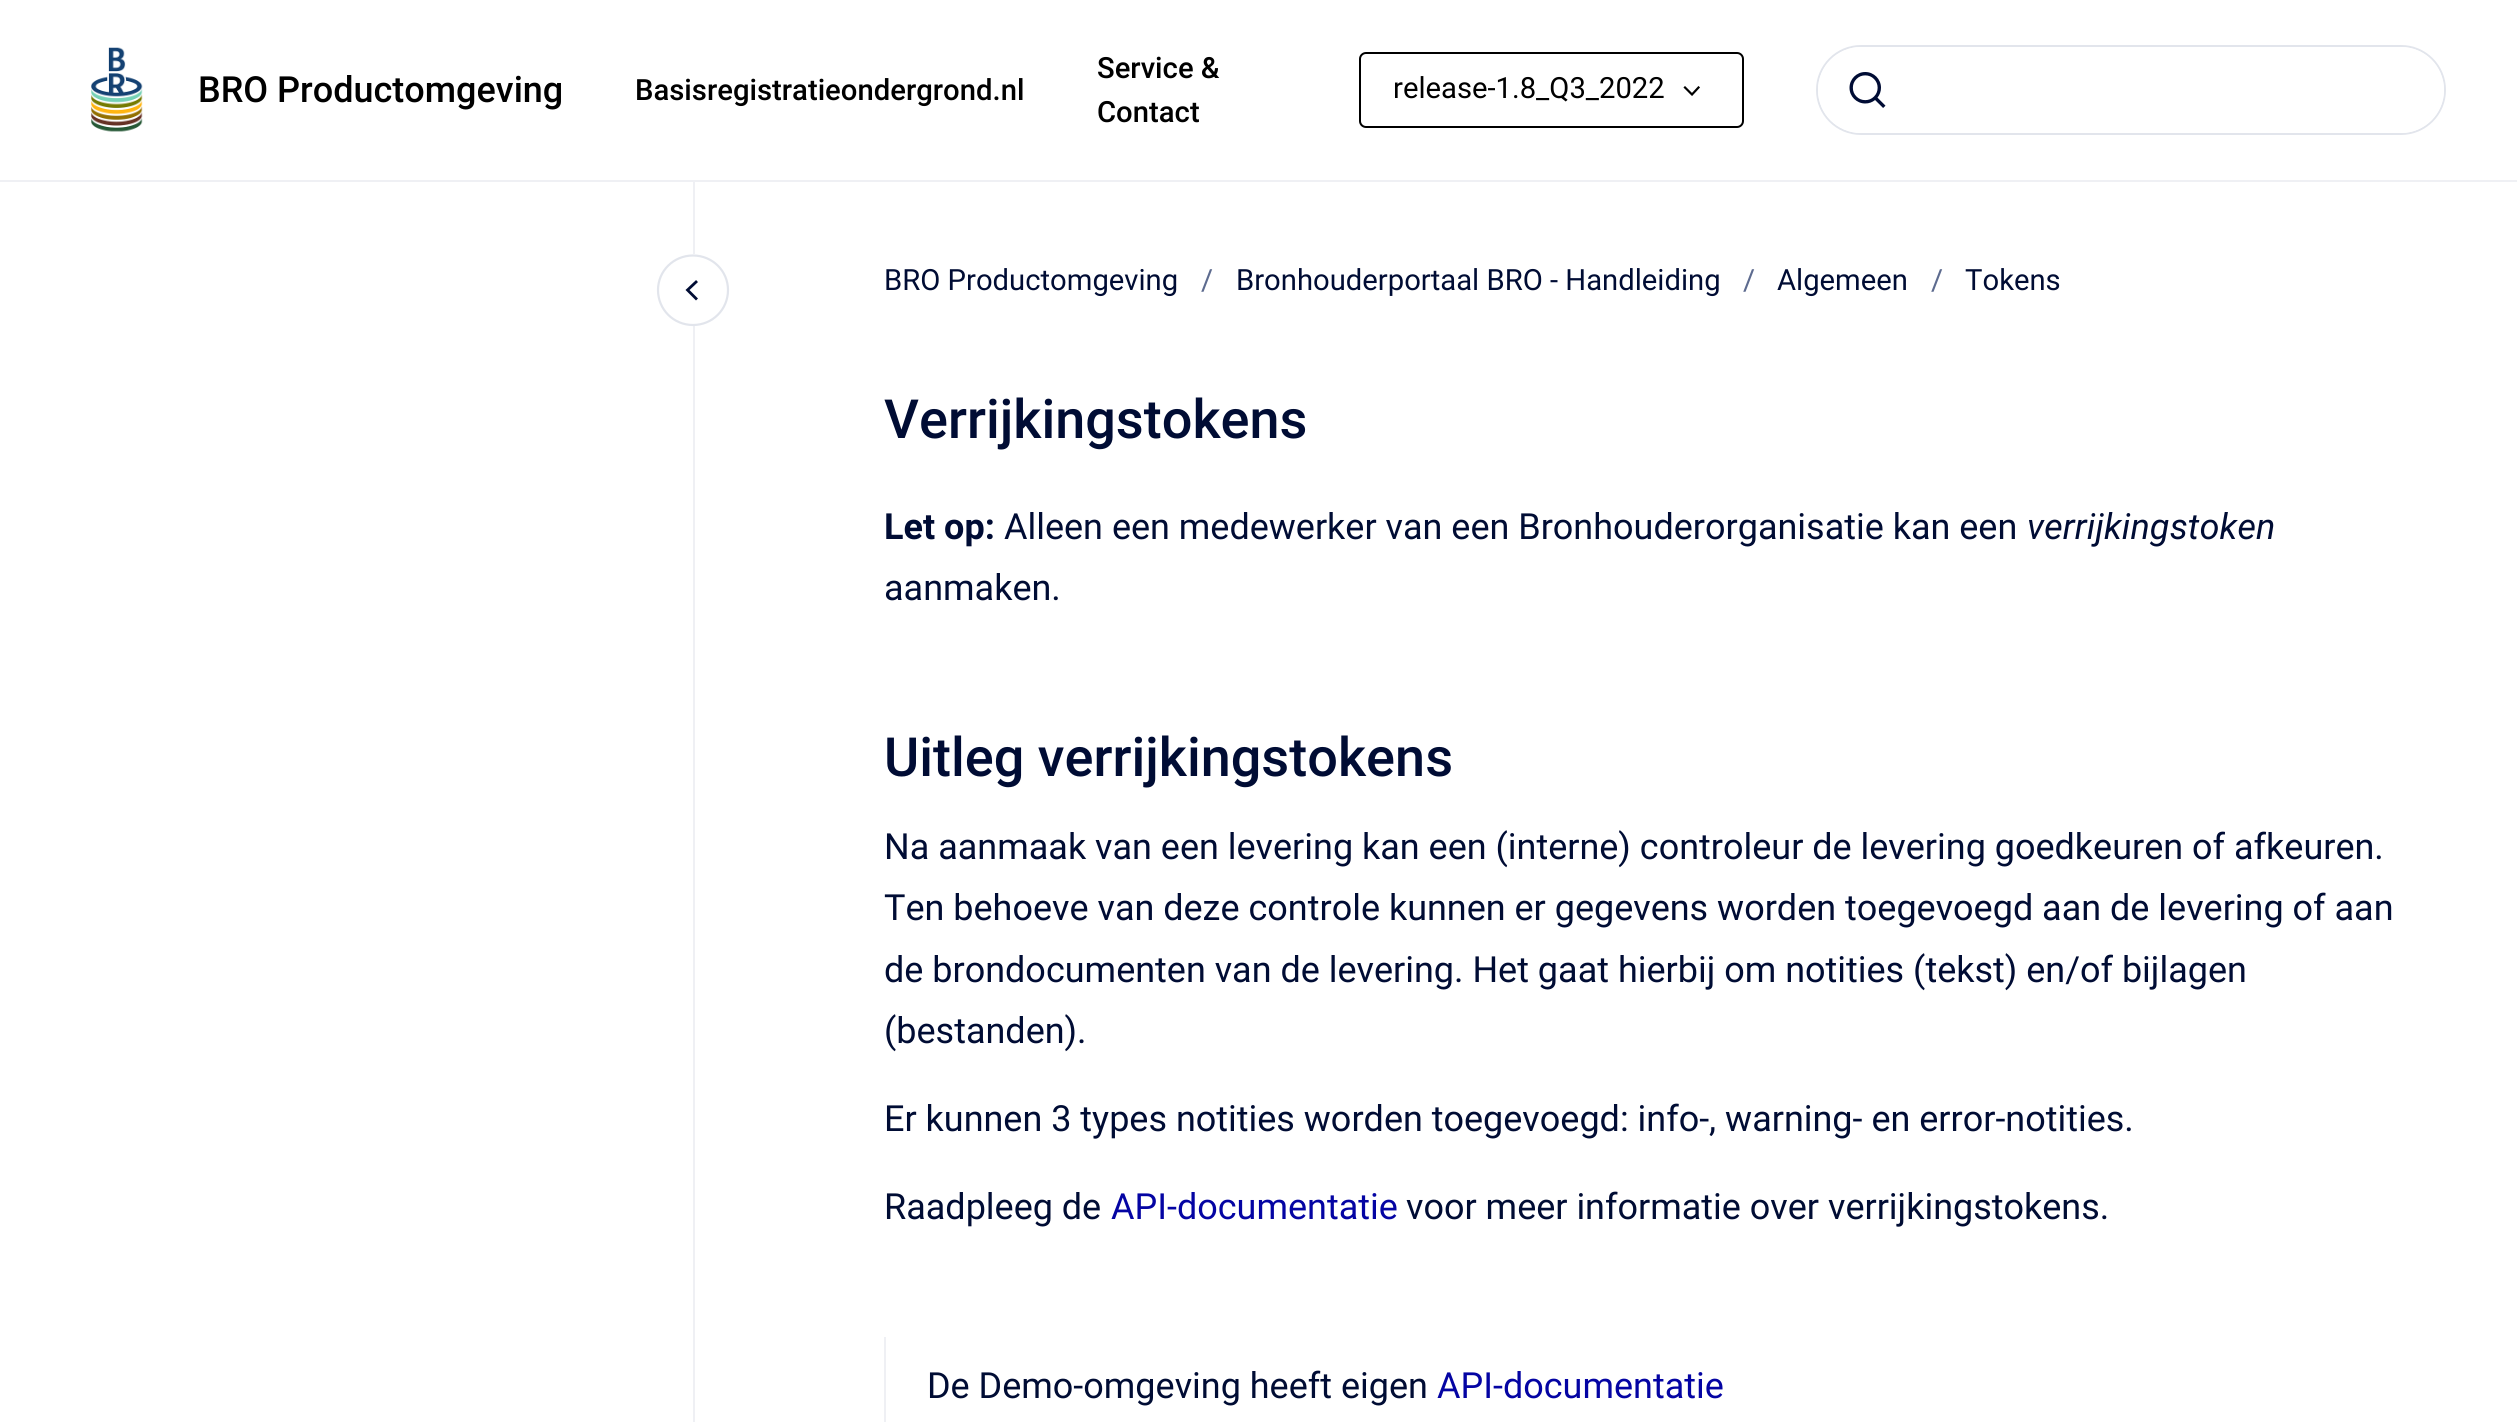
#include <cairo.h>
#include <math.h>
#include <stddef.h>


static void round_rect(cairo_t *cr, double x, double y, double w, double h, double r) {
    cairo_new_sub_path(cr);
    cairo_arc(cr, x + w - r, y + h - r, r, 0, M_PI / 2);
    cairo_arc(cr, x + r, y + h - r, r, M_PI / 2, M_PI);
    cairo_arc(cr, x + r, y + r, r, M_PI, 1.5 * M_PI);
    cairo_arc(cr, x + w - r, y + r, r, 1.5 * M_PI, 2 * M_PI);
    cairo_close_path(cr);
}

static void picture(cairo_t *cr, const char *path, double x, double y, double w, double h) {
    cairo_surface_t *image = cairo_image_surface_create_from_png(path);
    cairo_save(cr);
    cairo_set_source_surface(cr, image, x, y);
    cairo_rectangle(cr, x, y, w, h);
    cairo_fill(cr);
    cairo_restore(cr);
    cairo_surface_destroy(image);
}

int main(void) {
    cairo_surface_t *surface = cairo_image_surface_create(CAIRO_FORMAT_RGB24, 2517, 1422);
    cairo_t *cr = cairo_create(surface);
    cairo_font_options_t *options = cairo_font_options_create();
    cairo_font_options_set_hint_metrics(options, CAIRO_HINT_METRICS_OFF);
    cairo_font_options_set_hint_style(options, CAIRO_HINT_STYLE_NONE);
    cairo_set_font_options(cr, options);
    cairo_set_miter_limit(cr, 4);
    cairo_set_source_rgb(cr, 1, 1, 1);
    cairo_paint(cr);
    cairo_set_source_rgb(cr, 0.937, 0.941, 0.957);
    cairo_rectangle(cr, 0, 180, 2517, 2);
    cairo_fill(cr);
    picture(cr, "img1.png", 91, 47, 52, 85);
    cairo_select_font_face(cr, "Roboto Medium", CAIRO_FONT_SLANT_NORMAL, CAIRO_FONT_WEIGHT_NORMAL);
    cairo_set_font_size(cr, 36);
    cairo_set_source_rgb(cr, 0, 0, 0);
    cairo_move_to(cr, 198, 102);
    cairo_show_text(cr, "BRO Productomgeving");
    cairo_set_font_size(cr, 29.25);
    cairo_move_to(cr, 635, 100);
    cairo_show_text(cr, "Basisregistratieondergrond.nl");
    cairo_move_to(cr, 1097, 78);
    cairo_show_text(cr, "Service &");
    cairo_move_to(cr, 1097, 122);
    cairo_show_text(cr, "Contact");
    round_rect(cr, 1360, 53, 383, 74, 6);
    cairo_stroke(cr);
    cairo_select_font_face(cr, "Roboto", CAIRO_FONT_SLANT_NORMAL, CAIRO_FONT_WEIGHT_NORMAL);
    cairo_move_to(cr, 1393, 98);
    cairo_show_text(cr, "release-1.8_Q3_2022");
    cairo_new_path(cr);
    cairo_move_to(cr, 1698.5, 87.5);
    cairo_line_to(cr, 1692, 94.5);
    cairo_line_to(cr, 1685, 87.5);
    cairo_set_line_width(cr, 2.2);
    cairo_set_line_cap(cr, CAIRO_LINE_CAP_SQUARE);
    cairo_stroke(cr);
    round_rect(cr, 1817, 46, 628, 88, 44);
    cairo_set_source_rgb(cr, 0.886, 0.898, 0.922);
    cairo_set_line_width(cr, 2);
    cairo_set_line_cap(cr, CAIRO_LINE_CAP_BUTT);
    cairo_stroke(cr);
    cairo_set_source_rgb(cr, 1, 1, 1);
    round_rect(cr, 1818, 47, 626, 86, 43);
    cairo_fill(cr);
    picture(cr, "img2.png", 1849, 72, 37, 36);
    cairo_set_source_rgb(cr, 0.937, 0.941, 0.957);
    cairo_rectangle(cr, 693, 182, 2, 1240);
    cairo_fill(cr);
    cairo_set_source_rgb(cr, 1, 1, 1);
    cairo_new_path(cr);
    cairo_move_to(cr, 693, 326);
    cairo_curve_to(cr, 673, 326, 657, 310, 657, 290);
    cairo_curve_to(cr, 657, 270, 673, 254, 693, 254);
    cairo_curve_to(cr, 713, 254, 729, 270, 729, 290);
    cairo_curve_to(cr, 729, 310, 713, 326, 693, 326);
    cairo_close_path(cr);
    cairo_fill(cr);
    cairo_new_path(cr);
    cairo_move_to(cr, 693, 325);
    cairo_curve_to(cr, 673.5, 325, 658, 309.5, 658, 290);
    cairo_curve_to(cr, 658, 271, 673.5, 255.5, 693, 255.5);
    cairo_curve_to(cr, 712.5, 255.5, 728, 271, 728, 290);
    cairo_curve_to(cr, 728, 309.5, 712.5, 325, 693, 325);
    cairo_close_path(cr);
    cairo_set_source_rgb(cr, 0.886, 0.898, 0.922);
    cairo_set_line_width(cr, 2.2);
    cairo_stroke(cr);
    cairo_new_path(cr);
    cairo_move_to(cr, 696, 298.5);
    cairo_line_to(cr, 687.5, 290);
    cairo_line_to(cr, 696, 282);
    cairo_set_source_rgb(cr, 0, 0.047, 0.204);
    cairo_set_line_width(cr, 2.8);
    cairo_set_line_cap(cr, CAIRO_LINE_CAP_SQUARE);
    cairo_stroke(cr);
    cairo_move_to(cr, 884, 290);
    cairo_show_text(cr, "BRO Productomgeving");
    cairo_set_source_rgb(cr, 0.365, 0.42, 0.561);
    cairo_move_to(cr, 1201, 290);
    cairo_show_text(cr, "/");
    cairo_set_source_rgb(cr, 0, 0.047, 0.204);
    cairo_move_to(cr, 1236, 290);
    cairo_show_text(cr, "Bronhouderportaal BRO - Handleiding");
    cairo_set_source_rgb(cr, 0.365, 0.42, 0.561);
    cairo_move_to(cr, 1743, 290);
    cairo_show_text(cr, "/");
    cairo_set_source_rgb(cr, 0, 0.047, 0.204);
    cairo_move_to(cr, 1777, 290);
    cairo_show_text(cr, "Algemeen");
    cairo_set_source_rgb(cr, 0.365, 0.42, 0.561);
    cairo_move_to(cr, 1931, 290);
    cairo_show_text(cr, "/");
    cairo_set_source_rgb(cr, 0, 0.047, 0.204);
    cairo_move_to(cr, 1965, 290);
    cairo_show_text(cr, "Tokens");
    cairo_select_font_face(cr, "Roboto Medium", CAIRO_FONT_SLANT_NORMAL, CAIRO_FONT_WEIGHT_NORMAL);
    cairo_set_font_size(cr, 54);
    cairo_move_to(cr, 884, 438);
    cairo_show_text(cr, "Verrijkingstokens");
    cairo_select_font_face(cr, "Roboto", CAIRO_FONT_SLANT_NORMAL, CAIRO_FONT_WEIGHT_BOLD);
    cairo_set_font_size(cr, 36);
    cairo_move_to(cr, 884, 539);
    cairo_show_text(cr, "Let op:");
    cairo_select_font_face(cr, "Roboto", CAIRO_FONT_SLANT_NORMAL, CAIRO_FONT_WEIGHT_NORMAL);
    cairo_move_to(cr, 1004, 539);
    cairo_show_text(cr, "Alleen een medewerker van een Bronhouderorganisatie kan een");
    cairo_select_font_face(cr, "Roboto", CAIRO_FONT_SLANT_ITALIC, CAIRO_FONT_WEIGHT_NORMAL);
    cairo_move_to(cr, 2027, 539);
    cairo_show_text(cr, "verrijkingstoken");
    cairo_select_font_face(cr, "Roboto", CAIRO_FONT_SLANT_NORMAL, CAIRO_FONT_WEIGHT_NORMAL);
    cairo_move_to(cr, 884, 600);
    cairo_show_text(cr, "aanmaken.");
    cairo_select_font_face(cr, "Roboto Medium", CAIRO_FONT_SLANT_NORMAL, CAIRO_FONT_WEIGHT_NORMAL);
    cairo_set_font_size(cr, 54);
    cairo_move_to(cr, 884, 776);
    cairo_show_text(cr, "Uitleg verrijkingstokens");
    cairo_select_font_face(cr, "Roboto", CAIRO_FONT_SLANT_NORMAL, CAIRO_FONT_WEIGHT_NORMAL);
    cairo_set_font_size(cr, 36);
    cairo_move_to(cr, 884, 859);
    cairo_show_text(cr, "Na aanmaak van een levering kan een (interne) controleur de levering goedkeuren of afkeuren.");
    cairo_move_to(cr, 884, 920);
    cairo_show_text(cr, "Ten behoeve van deze controle kunnen er gegevens worden toegevoegd aan de levering of aan");
    cairo_move_to(cr, 884, 982);
    cairo_show_text(cr, "de brondocumenten van de levering. Het gaat hierbij om notities (tekst) en/of bijlagen");
    cairo_move_to(cr, 884, 1043);
    cairo_show_text(cr, "(bestanden).");
    cairo_move_to(cr, 884, 1131);
    cairo_show_text(cr, "Er kunnen 3 types notities worden toegevoegd: info-, warning- en error-notities.");
    cairo_move_to(cr, 884, 1219);
    cairo_show_text(cr, "Raadpleeg de");
    cairo_set_source_rgb(cr, 0.016, 0.016, 0.639);
    cairo_move_to(cr, 1111, 1219);
    cairo_show_text(cr, "API-documentatie");
    cairo_set_source_rgb(cr, 0, 0.047, 0.204);
    cairo_move_to(cr, 1406, 1219);
    cairo_show_text(cr, "voor meer informatie over verrijkingstokens.");
    cairo_set_source_rgb(cr, 0.937, 0.941, 0.957);
    cairo_rectangle(cr, 884, 1337, 2, 85);
    cairo_fill(cr);
    cairo_set_source_rgb(cr, 0, 0.047, 0.204);
    cairo_move_to(cr, 927, 1398);
    cairo_show_text(cr, "De Demo-omgeving heeft eigen");
    cairo_set_source_rgb(cr, 0.016, 0.016, 0.639);
    cairo_move_to(cr, 1437, 1398);
    cairo_show_text(cr, "API-documentatie");
    cairo_surface_write_to_png(surface, "page.png");
    cairo_font_options_destroy(options);
    cairo_destroy(cr);
    cairo_surface_destroy(surface);
    return 0;
}
